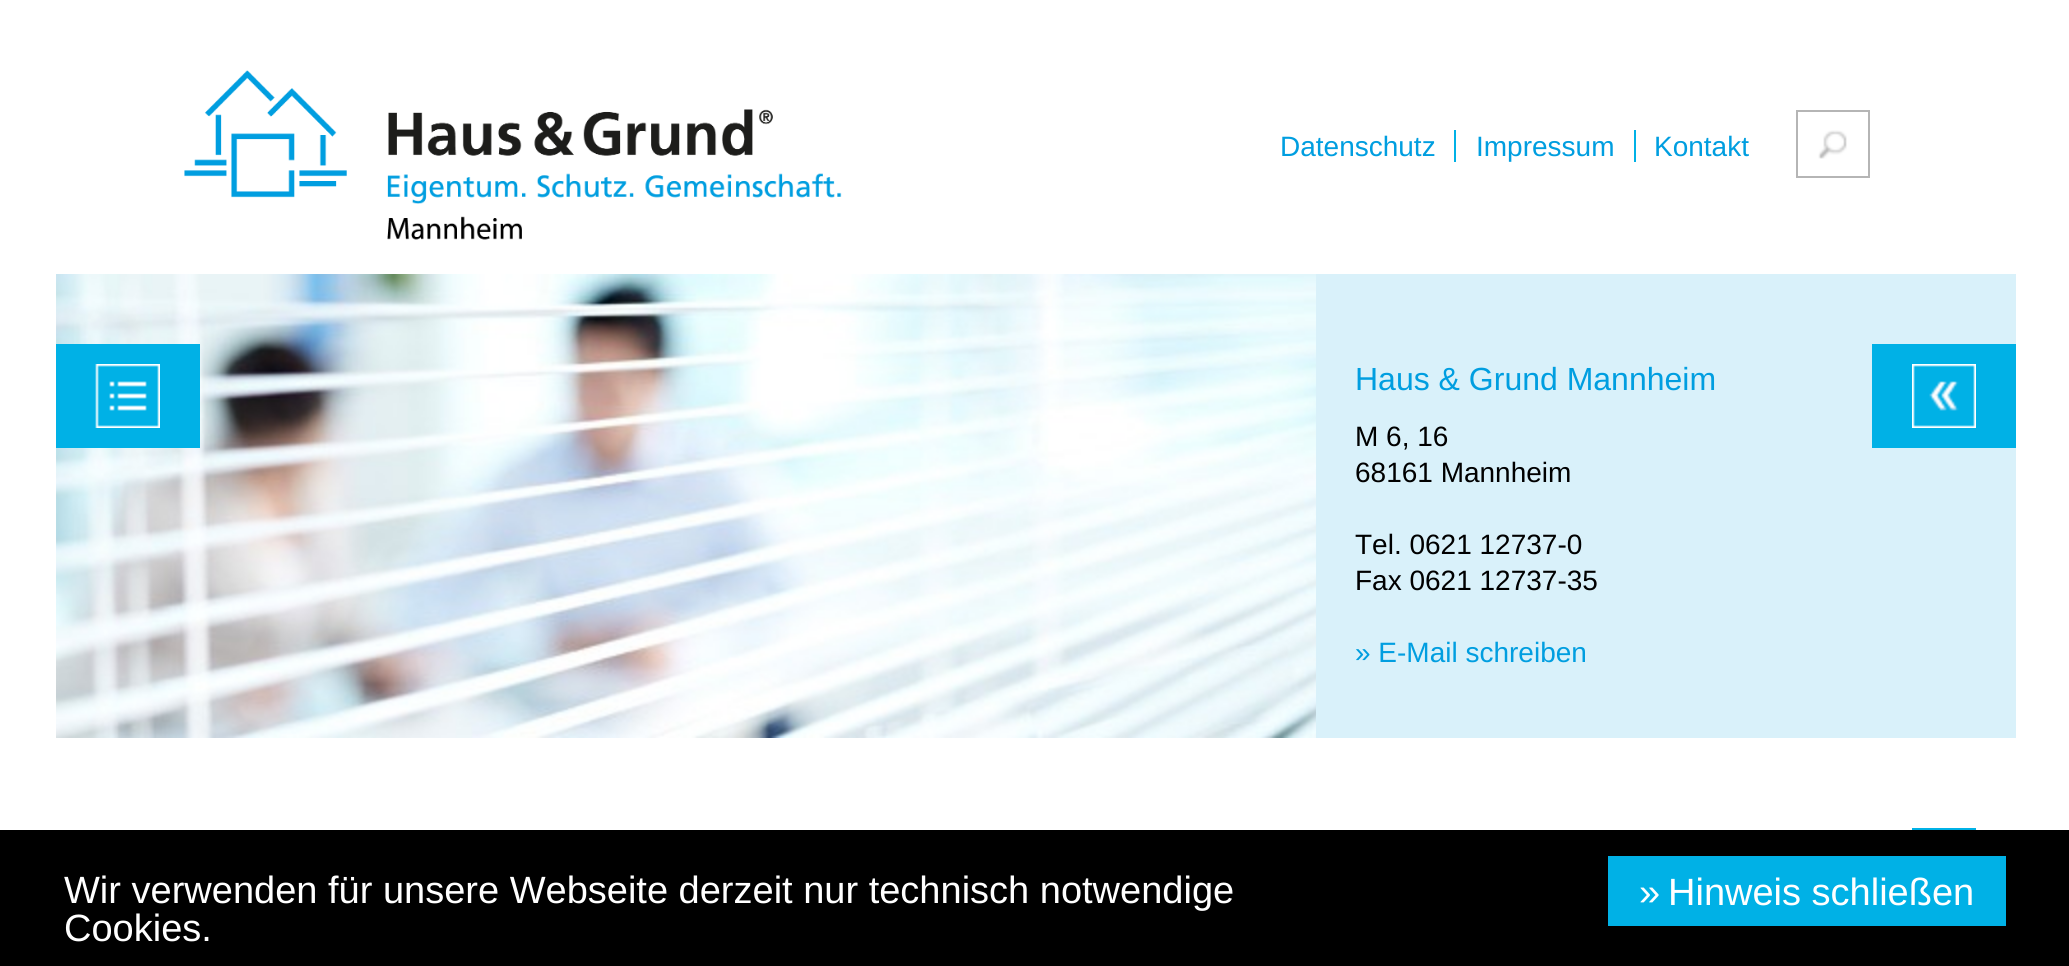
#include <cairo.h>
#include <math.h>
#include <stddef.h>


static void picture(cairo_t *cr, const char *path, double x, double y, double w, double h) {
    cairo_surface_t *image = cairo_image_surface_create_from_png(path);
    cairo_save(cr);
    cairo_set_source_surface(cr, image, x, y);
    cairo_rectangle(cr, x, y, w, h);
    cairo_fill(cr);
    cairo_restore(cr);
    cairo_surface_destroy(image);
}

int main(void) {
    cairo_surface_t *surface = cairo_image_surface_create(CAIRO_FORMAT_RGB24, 2069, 966);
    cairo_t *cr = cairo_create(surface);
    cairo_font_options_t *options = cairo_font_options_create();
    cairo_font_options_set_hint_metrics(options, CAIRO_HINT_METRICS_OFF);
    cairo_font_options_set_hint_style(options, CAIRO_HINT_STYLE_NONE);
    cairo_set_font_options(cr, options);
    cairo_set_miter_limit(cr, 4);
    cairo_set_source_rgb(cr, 1, 1, 1);
    cairo_paint(cr);
    picture(cr, "img1.png", 184, 70, 658, 170);
    cairo_select_font_face(cr, "Liberation Sans", CAIRO_FONT_SLANT_NORMAL, CAIRO_FONT_WEIGHT_NORMAL);
    cairo_set_font_size(cr, 28);
    cairo_set_source_rgb(cr, 0, 0.62, 0.878);
    cairo_move_to(cr, 1280, 156);
    cairo_show_text(cr, "Datenschutz");
    cairo_set_source_rgb(cr, 0, 0.694, 0.902);
    cairo_rectangle(cr, 1454, 130, 2, 32);
    cairo_fill(cr);
    cairo_set_source_rgb(cr, 0, 0.62, 0.878);
    cairo_move_to(cr, 1476, 156);
    cairo_show_text(cr, "Impressum");
    cairo_set_source_rgb(cr, 0, 0.694, 0.902);
    cairo_rectangle(cr, 1634, 130, 2, 32);
    cairo_fill(cr);
    cairo_set_source_rgb(cr, 0, 0.62, 0.878);
    cairo_move_to(cr, 1654, 156);
    cairo_show_text(cr, "Kontakt");
    picture(cr, "img2.png", 1818, 130, 29, 29);
    cairo_rectangle(cr, 1797, 111, 72, 66);
    cairo_set_source_rgb(cr, 0.71, 0.71, 0.71);
    cairo_stroke(cr);
    picture(cr, "img5.png", 56, 274, 1260, 464);
    cairo_set_source_rgb(cr, 0, 0.694, 0.902);
    cairo_rectangle(cr, 56, 344, 144, 104);
    cairo_fill(cr);
    picture(cr, "img3.png", 95, 364, 65, 64);
    cairo_set_source_rgb(cr, 0.851, 0.945, 0.98);
    cairo_rectangle(cr, 1316, 274, 700, 464);
    cairo_fill(cr);
    cairo_set_source_rgb(cr, 0, 0.694, 0.902);
    cairo_rectangle(cr, 1872, 344, 144, 104);
    cairo_fill(cr);
    picture(cr, "img4.png", 1912, 364, 64, 64);
    cairo_set_font_size(cr, 32);
    cairo_set_source_rgb(cr, 0, 0.62, 0.878);
    cairo_move_to(cr, 1355, 390);
    cairo_show_text(cr, "Haus & Grund Mannheim");
    cairo_set_font_size(cr, 28);
    cairo_set_source_rgb(cr, 0, 0, 0);
    cairo_move_to(cr, 1355, 446);
    cairo_show_text(cr, "M 6, 16");
    cairo_move_to(cr, 1355, 482);
    cairo_show_text(cr, "68161 Mannheim");
    cairo_move_to(cr, 1355, 554);
    cairo_show_text(cr, "Tel. 0621 12737-0");
    cairo_move_to(cr, 1355, 590);
    cairo_show_text(cr, "Fax 0621 12737-35");
    cairo_set_source_rgb(cr, 0, 0.62, 0.878);
    cairo_move_to(cr, 1355, 662);
    cairo_show_text(cr, "» E-Mail schreiben");
    picture(cr, "img6.png", 1912, 828, 64, 2);
    cairo_set_source_rgb(cr, 0, 0, 0);
    cairo_rectangle(cr, 0, 830, 2069, 136);
    cairo_fill(cr);
    cairo_set_font_size(cr, 38);
    cairo_set_source_rgb(cr, 1, 1, 1);
    cairo_move_to(cr, 64, 903);
    cairo_show_text(cr, "Wir verwenden für unsere Webseite derzeit nur technisch notwendige");
    cairo_move_to(cr, 64, 941);
    cairo_show_text(cr, "Cookies.");
    cairo_set_source_rgb(cr, 0, 0.694, 0.902);
    cairo_rectangle(cr, 1608, 856, 398, 70);
    cairo_fill(cr);
    cairo_set_source_rgb(cr, 1, 1, 1);
    cairo_move_to(cr, 1639, 905);
    cairo_show_text(cr, "»");
    cairo_move_to(cr, 1668, 905);
    cairo_show_text(cr, "Hinweis schließen");
    cairo_surface_write_to_png(surface, "page.png");
    cairo_font_options_destroy(options);
    cairo_destroy(cr);
    cairo_surface_destroy(surface);
    return 0;
}
